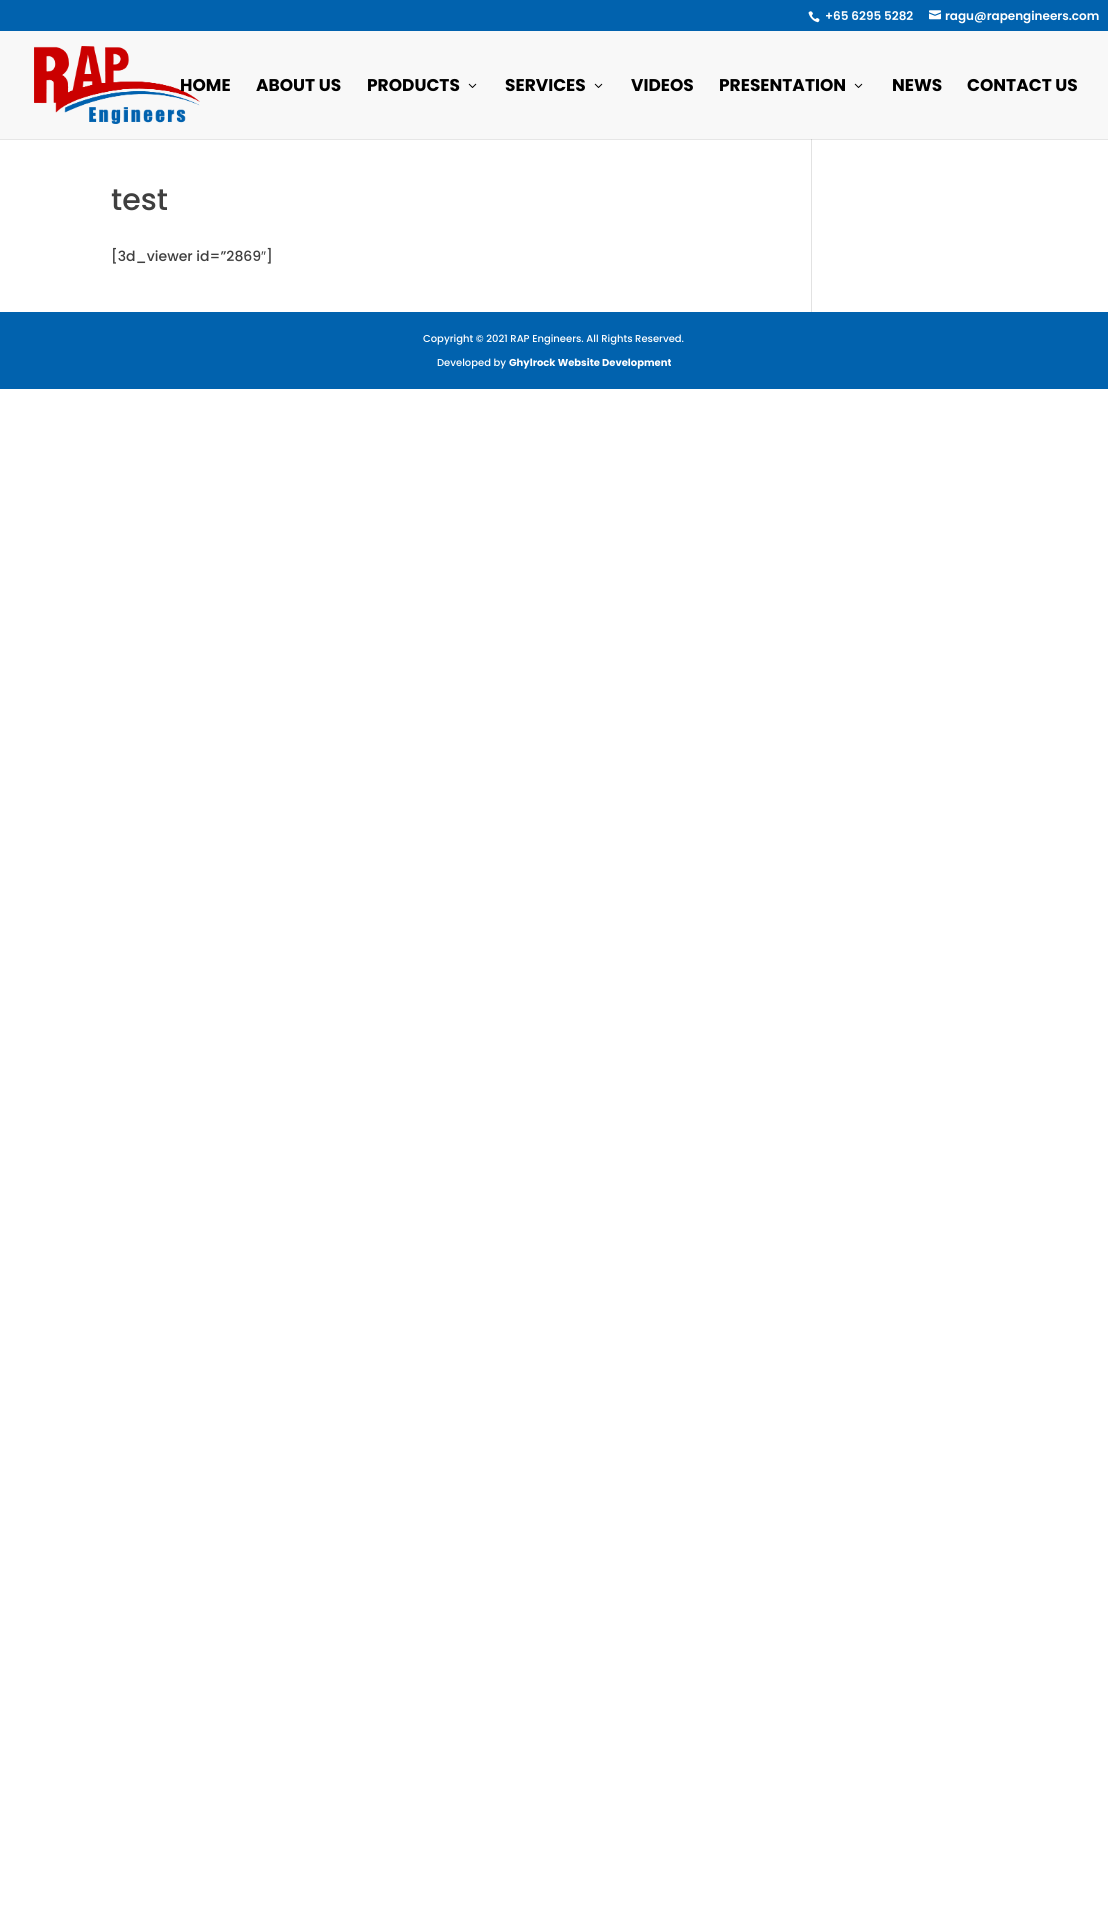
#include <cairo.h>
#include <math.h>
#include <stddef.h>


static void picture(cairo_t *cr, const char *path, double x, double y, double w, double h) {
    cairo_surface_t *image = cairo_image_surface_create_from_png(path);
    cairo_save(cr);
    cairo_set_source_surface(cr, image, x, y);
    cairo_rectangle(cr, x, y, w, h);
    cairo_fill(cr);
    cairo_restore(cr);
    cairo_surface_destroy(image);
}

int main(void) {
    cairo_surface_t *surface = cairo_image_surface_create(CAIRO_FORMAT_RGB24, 1108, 1914);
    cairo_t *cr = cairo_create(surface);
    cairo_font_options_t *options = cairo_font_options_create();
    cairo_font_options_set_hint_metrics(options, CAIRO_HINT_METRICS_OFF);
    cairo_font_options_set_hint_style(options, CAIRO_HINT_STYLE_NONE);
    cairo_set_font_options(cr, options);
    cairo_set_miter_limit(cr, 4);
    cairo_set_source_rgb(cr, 1, 1, 1);
    cairo_paint(cr);
    cairo_set_source_rgb(cr, 0.902, 0.902, 0.902);
    cairo_rectangle(cr, 0, 139, 1108, 1);
    cairo_fill(cr);
    cairo_set_source_rgb(cr, 0.004, 0.384, 0.682);
    cairo_rectangle(cr, 0, 0, 1108, 31);
    cairo_fill(cr);
    picture(cr, "img1.png", 808, 11, 12, 12);
    cairo_select_font_face(cr, "Poppins SemiBold", CAIRO_FONT_SLANT_NORMAL, CAIRO_FONT_WEIGHT_NORMAL);
    cairo_set_font_size(cr, 12);
    cairo_set_source_rgb(cr, 1, 1, 1);
    cairo_move_to(cr, 825, 20);
    cairo_show_text(cr, "+65 6295 5282");
    picture(cr, "img2.png", 929, 10, 12, 10);
    cairo_move_to(cr, 945, 20);
    cairo_show_text(cr, "ragu@rapengineers.com");
    cairo_set_source_rgb(cr, 0.969, 0.969, 0.969);
    cairo_rectangle(cr, 0, 31, 1108, 108);
    cairo_fill(cr);
    picture(cr, "img3.png", 34, 46, 166, 78);
    cairo_select_font_face(cr, "Poppins", CAIRO_FONT_SLANT_NORMAL, CAIRO_FONT_WEIGHT_BOLD);
    cairo_set_font_size(cr, 17);
    cairo_set_source_rgb(cr, 0, 0, 0);
    cairo_move_to(cr, 180, 91);
    cairo_show_text(cr, "HOME");
    cairo_move_to(cr, 256, 91);
    cairo_show_text(cr, "ABOUT US");
    cairo_move_to(cr, 367, 91);
    cairo_show_text(cr, "PRODUCTS");
    picture(cr, "img4.png", 468, 83, 9, 5);
    cairo_move_to(cr, 505, 91);
    cairo_show_text(cr, "SERVICES");
    picture(cr, "img4.png", 594, 83, 9, 5);
    cairo_move_to(cr, 631, 91);
    cairo_show_text(cr, "VIDEOS");
    cairo_move_to(cr, 719, 91);
    cairo_show_text(cr, "PRESENTATION");
    picture(cr, "img4.png", 854, 83, 9, 5);
    cairo_move_to(cr, 892, 91);
    cairo_show_text(cr, "NEWS");
    cairo_move_to(cr, 967, 91);
    cairo_show_text(cr, "CONTACT US");
    cairo_select_font_face(cr, "Poppins Medium", CAIRO_FONT_SLANT_NORMAL, CAIRO_FONT_WEIGHT_NORMAL);
    cairo_set_font_size(cr, 30);
    cairo_set_source_rgb(cr, 0.247, 0.247, 0.247);
    cairo_move_to(cr, 111, 210);
    cairo_show_text(cr, "test");
    cairo_set_font_size(cr, 14);
    cairo_move_to(cr, 111, 261);
    cairo_show_text(cr, "[3d_viewer id=”2869");
    cairo_select_font_face(cr, "Liberation Sans", CAIRO_FONT_SLANT_NORMAL, CAIRO_FONT_WEIGHT_NORMAL);
    cairo_move_to(cr, 261, 261);
    cairo_show_text(cr, "″");
    cairo_select_font_face(cr, "Poppins Medium", CAIRO_FONT_SLANT_NORMAL, CAIRO_FONT_WEIGHT_NORMAL);
    cairo_move_to(cr, 266, 261);
    cairo_show_text(cr, "]");
    cairo_set_source_rgb(cr, 0.886, 0.886, 0.886);
    cairo_rectangle(cr, 811, 140, 1, 172);
    cairo_fill(cr);
    cairo_set_source_rgb(cr, 0.796, 0.796, 0.796);
    cairo_rectangle(cr, 811, 139, 1, 1);
    cairo_fill(cr);
    cairo_set_source_rgb(cr, 0.004, 0.384, 0.682);
    cairo_rectangle(cr, 0, 312, 1108, 77);
    cairo_fill(cr);
    cairo_set_font_size(cr, 10);
    cairo_set_source_rgb(cr, 1, 1, 1);
    cairo_move_to(cr, 423, 342);
    cairo_show_text(cr, "Copyright © 2021 RAP Engineers. All Rights Reserved.");
    cairo_move_to(cr, 437, 366);
    cairo_show_text(cr, "Developed by");
    cairo_select_font_face(cr, "Poppins", CAIRO_FONT_SLANT_NORMAL, CAIRO_FONT_WEIGHT_BOLD);
    cairo_move_to(cr, 509, 366);
    cairo_show_text(cr, "Ghylrock Website Development");
    cairo_surface_write_to_png(surface, "page.png");
    cairo_font_options_destroy(options);
    cairo_destroy(cr);
    cairo_surface_destroy(surface);
    return 0;
}
